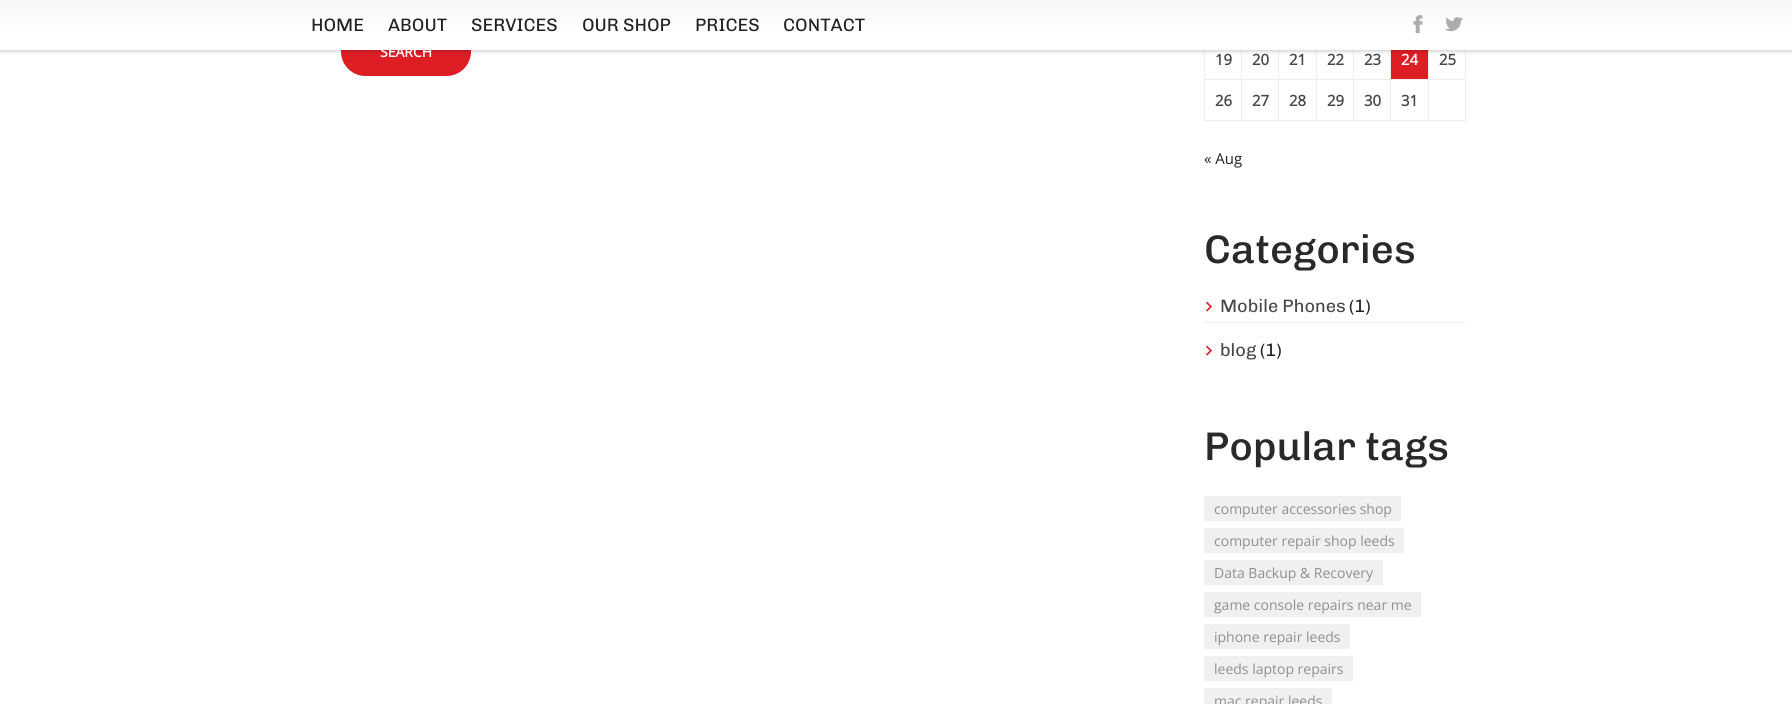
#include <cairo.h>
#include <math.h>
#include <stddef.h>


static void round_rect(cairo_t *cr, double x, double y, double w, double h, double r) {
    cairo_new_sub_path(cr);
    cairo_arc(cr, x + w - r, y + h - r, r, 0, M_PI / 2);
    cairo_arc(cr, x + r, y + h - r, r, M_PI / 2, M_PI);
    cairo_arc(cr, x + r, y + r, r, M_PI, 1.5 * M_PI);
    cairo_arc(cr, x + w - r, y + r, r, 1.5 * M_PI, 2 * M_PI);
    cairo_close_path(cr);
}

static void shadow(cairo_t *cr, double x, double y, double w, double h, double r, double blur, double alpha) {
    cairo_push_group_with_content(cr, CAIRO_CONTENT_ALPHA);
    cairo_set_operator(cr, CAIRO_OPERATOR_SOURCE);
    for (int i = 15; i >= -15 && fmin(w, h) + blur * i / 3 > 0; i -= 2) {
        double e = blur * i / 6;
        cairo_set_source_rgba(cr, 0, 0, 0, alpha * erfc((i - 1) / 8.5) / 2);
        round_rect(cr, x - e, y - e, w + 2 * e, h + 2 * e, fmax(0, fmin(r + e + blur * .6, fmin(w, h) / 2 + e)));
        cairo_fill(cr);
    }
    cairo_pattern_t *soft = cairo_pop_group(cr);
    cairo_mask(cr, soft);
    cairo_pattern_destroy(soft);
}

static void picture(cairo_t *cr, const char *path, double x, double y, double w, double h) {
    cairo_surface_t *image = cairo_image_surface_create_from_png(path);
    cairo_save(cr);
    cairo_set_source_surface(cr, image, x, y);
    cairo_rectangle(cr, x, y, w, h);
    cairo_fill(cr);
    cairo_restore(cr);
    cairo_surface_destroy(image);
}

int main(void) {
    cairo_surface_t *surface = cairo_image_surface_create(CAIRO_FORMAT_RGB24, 1792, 704);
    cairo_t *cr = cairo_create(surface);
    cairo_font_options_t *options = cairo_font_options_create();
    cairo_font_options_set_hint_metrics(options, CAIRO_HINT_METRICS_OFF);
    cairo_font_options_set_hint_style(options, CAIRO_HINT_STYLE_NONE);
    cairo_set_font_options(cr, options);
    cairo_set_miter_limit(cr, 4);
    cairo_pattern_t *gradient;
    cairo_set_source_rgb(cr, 1, 1, 1);
    cairo_paint(cr);
    cairo_set_source_rgb(cr, 0.867, 0.118, 0.145);
    round_rect(cr, 341, 27, 130, 49, 24.5);
    cairo_fill(cr);
    cairo_set_source_rgb(cr, 0.933, 0.933, 0.933);
    cairo_rectangle(cr, 1428, 79, 38, 1);
    cairo_fill(cr);
    cairo_rectangle(cr, 1465, 50, 1, 71);
    cairo_fill(cr);
    cairo_rectangle(cr, 1428, 120, 38, 1);
    cairo_fill(cr);
    cairo_rectangle(cr, 1428, 79, 1, 42);
    cairo_fill(cr);
    cairo_rectangle(cr, 1390, 79, 39, 1);
    cairo_fill(cr);
    cairo_rectangle(cr, 1390, 120, 39, 1);
    cairo_fill(cr);
    cairo_rectangle(cr, 1390, 79, 1, 42);
    cairo_fill(cr);
    cairo_rectangle(cr, 1353, 79, 38, 1);
    cairo_fill(cr);
    cairo_rectangle(cr, 1353, 120, 38, 1);
    cairo_fill(cr);
    cairo_rectangle(cr, 1353, 79, 1, 42);
    cairo_fill(cr);
    cairo_rectangle(cr, 1316, 79, 38, 1);
    cairo_fill(cr);
    cairo_rectangle(cr, 1316, 120, 38, 1);
    cairo_fill(cr);
    cairo_rectangle(cr, 1316, 79, 1, 42);
    cairo_fill(cr);
    cairo_rectangle(cr, 1278, 79, 39, 1);
    cairo_fill(cr);
    cairo_rectangle(cr, 1278, 120, 39, 1);
    cairo_fill(cr);
    cairo_rectangle(cr, 1278, 79, 1, 42);
    cairo_fill(cr);
    cairo_rectangle(cr, 1241, 79, 38, 1);
    cairo_fill(cr);
    cairo_rectangle(cr, 1241, 120, 38, 1);
    cairo_fill(cr);
    cairo_rectangle(cr, 1241, 79, 1, 42);
    cairo_fill(cr);
    cairo_rectangle(cr, 1204, 79, 38, 1);
    cairo_fill(cr);
    cairo_rectangle(cr, 1241, 50, 1, 30);
    cairo_fill(cr);
    cairo_rectangle(cr, 1278, 50, 1, 30);
    cairo_fill(cr);
    cairo_rectangle(cr, 1316, 50, 1, 30);
    cairo_fill(cr);
    cairo_rectangle(cr, 1353, 50, 1, 30);
    cairo_fill(cr);
    cairo_set_source_rgb(cr, 0.867, 0.118, 0.145);
    cairo_rectangle(cr, 1391, 50, 37, 29);
    cairo_fill(cr);
    cairo_set_source_rgb(cr, 0.933, 0.933, 0.933);
    cairo_rectangle(cr, 1390, 50, 1, 30);
    cairo_fill(cr);
    cairo_rectangle(cr, 1428, 50, 1, 30);
    cairo_fill(cr);
    cairo_rectangle(cr, 1204, 120, 38, 1);
    cairo_fill(cr);
    cairo_rectangle(cr, 1204, 50, 1, 71);
    cairo_fill(cr);
    cairo_set_source_rgb(cr, 0, 0, 0);
    shadow(cr, 0, 2, 1792, 50, 0, 1.5, 0.15);
    cairo_select_font_face(cr, "Open Sans", CAIRO_FONT_SLANT_NORMAL, CAIRO_FONT_WEIGHT_BOLD);
    cairo_set_font_size(cr, 14);
    cairo_set_source_rgb(cr, 1, 1, 1);
    cairo_move_to(cr, 380, 57);
    cairo_show_text(cr, "SEARCH");
    gradient = cairo_pattern_create_linear(896, 0, 896, 50);
    cairo_pattern_add_color_stop_rgba(gradient, 0, 0.969, 0.969, 0.969, 1);
    cairo_pattern_add_color_stop_rgba(gradient, 0.6, 1, 1, 1, 1);
    cairo_set_source(cr, gradient);
    cairo_pattern_destroy(gradient);
    cairo_rectangle(cr, 0, 0, 1792, 50);
    cairo_fill(cr);
    cairo_select_font_face(cr, "Chivo", CAIRO_FONT_SLANT_NORMAL, CAIRO_FONT_WEIGHT_NORMAL);
    cairo_set_font_size(cr, 18);
    cairo_set_source_rgb(cr, 0.133, 0.133, 0.133);
    cairo_move_to(cr, 311, 31);
    cairo_show_text(cr, "HOME");
    cairo_move_to(cr, 388, 31);
    cairo_show_text(cr, "ABOUT");
    cairo_move_to(cr, 471, 31);
    cairo_show_text(cr, "SERVICES");
    cairo_move_to(cr, 582, 31);
    cairo_show_text(cr, "OUR SHOP");
    cairo_move_to(cr, 695, 31);
    cairo_show_text(cr, "PRICES");
    cairo_move_to(cr, 783, 31);
    cairo_show_text(cr, "CONTACT");
    picture(cr, "img1.png", 1413, 15, 10, 19);
    picture(cr, "img2.png", 1445, 17, 18, 15);
    cairo_select_font_face(cr, "Open Sans", CAIRO_FONT_SLANT_NORMAL, CAIRO_FONT_WEIGHT_BOLD);
    cairo_set_font_size(cr, 15);
    cairo_set_source_rgb(cr, 0.282, 0.282, 0.282);
    cairo_move_to(cr, 1215, 65);
    cairo_show_text(cr, "19");
    cairo_move_to(cr, 1252, 65);
    cairo_show_text(cr, "20");
    cairo_move_to(cr, 1289, 65);
    cairo_show_text(cr, "21");
    cairo_move_to(cr, 1327, 65);
    cairo_show_text(cr, "22");
    cairo_move_to(cr, 1364, 65);
    cairo_show_text(cr, "23");
    cairo_set_source_rgb(cr, 1, 1, 1);
    cairo_move_to(cr, 1401, 65);
    cairo_show_text(cr, "24");
    cairo_set_source_rgb(cr, 0.282, 0.282, 0.282);
    cairo_move_to(cr, 1439, 65);
    cairo_show_text(cr, "25");
    cairo_move_to(cr, 1215, 106);
    cairo_show_text(cr, "26");
    cairo_move_to(cr, 1252, 106);
    cairo_show_text(cr, "27");
    cairo_move_to(cr, 1289, 106);
    cairo_show_text(cr, "28");
    cairo_move_to(cr, 1327, 106);
    cairo_show_text(cr, "29");
    cairo_move_to(cr, 1364, 106);
    cairo_show_text(cr, "30");
    cairo_move_to(cr, 1401, 106);
    cairo_show_text(cr, "31");
    cairo_select_font_face(cr, "Open Sans", CAIRO_FONT_SLANT_NORMAL, CAIRO_FONT_WEIGHT_NORMAL);
    cairo_set_source_rgb(cr, 0.133, 0.133, 0.133);
    cairo_move_to(cr, 1204, 164);
    cairo_show_text(cr, "« Aug");
    cairo_select_font_face(cr, "Chivo Medium", CAIRO_FONT_SLANT_NORMAL, CAIRO_FONT_WEIGHT_NORMAL);
    cairo_set_font_size(cr, 40);
    cairo_set_source_rgb(cr, 0.161, 0.161, 0.161);
    cairo_move_to(cr, 1204, 263);
    cairo_show_text(cr, "Categories");
    cairo_set_source_rgb(cr, 0.941, 0.941, 0.941);
    cairo_rectangle(cr, 1204, 322, 262, 1);
    cairo_fill(cr);
    picture(cr, "img3.png", 1206, 301, 6, 11);
    cairo_select_font_face(cr, "Chivo", CAIRO_FONT_SLANT_NORMAL, CAIRO_FONT_WEIGHT_NORMAL);
    cairo_set_font_size(cr, 18);
    cairo_set_source_rgb(cr, 0.282, 0.282, 0.282);
    cairo_move_to(cr, 1220, 312);
    cairo_show_text(cr, "Mobile Phones");
    cairo_set_source_rgb(cr, 0.133, 0.133, 0.133);
    cairo_move_to(cr, 1349, 312);
    cairo_show_text(cr, "(1)");
    picture(cr, "img3.png", 1206, 345, 6, 11);
    cairo_set_source_rgb(cr, 0.282, 0.282, 0.282);
    cairo_move_to(cr, 1220, 356);
    cairo_show_text(cr, "blog");
    cairo_set_source_rgb(cr, 0.133, 0.133, 0.133);
    cairo_move_to(cr, 1260, 356);
    cairo_show_text(cr, "(1)");
    cairo_select_font_face(cr, "Chivo Medium", CAIRO_FONT_SLANT_NORMAL, CAIRO_FONT_WEIGHT_NORMAL);
    cairo_set_font_size(cr, 40);
    cairo_set_source_rgb(cr, 0.161, 0.161, 0.161);
    cairo_move_to(cr, 1204, 460);
    cairo_show_text(cr, "Popular tags");
    cairo_set_source_rgb(cr, 0.941, 0.941, 0.941);
    cairo_rectangle(cr, 1204, 496, 197, 25);
    cairo_fill(cr);
    cairo_select_font_face(cr, "Open Sans", CAIRO_FONT_SLANT_NORMAL, CAIRO_FONT_WEIGHT_NORMAL);
    cairo_set_font_size(cr, 14);
    cairo_set_source_rgb(cr, 0.561, 0.561, 0.561);
    cairo_move_to(cr, 1214, 514);
    cairo_show_text(cr, "computer accessories shop");
    cairo_set_source_rgb(cr, 0.941, 0.941, 0.941);
    cairo_rectangle(cr, 1204, 528, 200, 25);
    cairo_fill(cr);
    cairo_set_source_rgb(cr, 0.561, 0.561, 0.561);
    cairo_move_to(cr, 1214, 546);
    cairo_show_text(cr, "computer repair shop leeds");
    cairo_set_source_rgb(cr, 0.941, 0.941, 0.941);
    cairo_rectangle(cr, 1204, 560, 179, 25);
    cairo_fill(cr);
    cairo_set_source_rgb(cr, 0.561, 0.561, 0.561);
    cairo_move_to(cr, 1214, 578);
    cairo_show_text(cr, "Data Backup & Recovery");
    cairo_set_source_rgb(cr, 0.941, 0.941, 0.941);
    cairo_rectangle(cr, 1204, 592, 217, 25);
    cairo_fill(cr);
    cairo_set_source_rgb(cr, 0.561, 0.561, 0.561);
    cairo_move_to(cr, 1214, 610);
    cairo_show_text(cr, "game console repairs near me");
    cairo_set_source_rgb(cr, 0.941, 0.941, 0.941);
    cairo_rectangle(cr, 1204, 624, 146, 25);
    cairo_fill(cr);
    cairo_set_source_rgb(cr, 0.561, 0.561, 0.561);
    cairo_move_to(cr, 1214, 642);
    cairo_show_text(cr, "iphone repair leeds");
    cairo_set_source_rgb(cr, 0.941, 0.941, 0.941);
    cairo_rectangle(cr, 1204, 656, 149, 25);
    cairo_fill(cr);
    cairo_set_source_rgb(cr, 0.561, 0.561, 0.561);
    cairo_move_to(cr, 1214, 674);
    cairo_show_text(cr, "leeds laptop repairs");
    cairo_set_source_rgb(cr, 0.941, 0.941, 0.941);
    cairo_rectangle(cr, 1204, 688, 128, 16);
    cairo_fill(cr);
    cairo_set_source_rgb(cr, 0.561, 0.561, 0.561);
    cairo_move_to(cr, 1214, 706);
    cairo_show_text(cr, "mac repair leeds");
    cairo_surface_write_to_png(surface, "page.png");
    cairo_font_options_destroy(options);
    cairo_destroy(cr);
    cairo_surface_destroy(surface);
    return 0;
}
